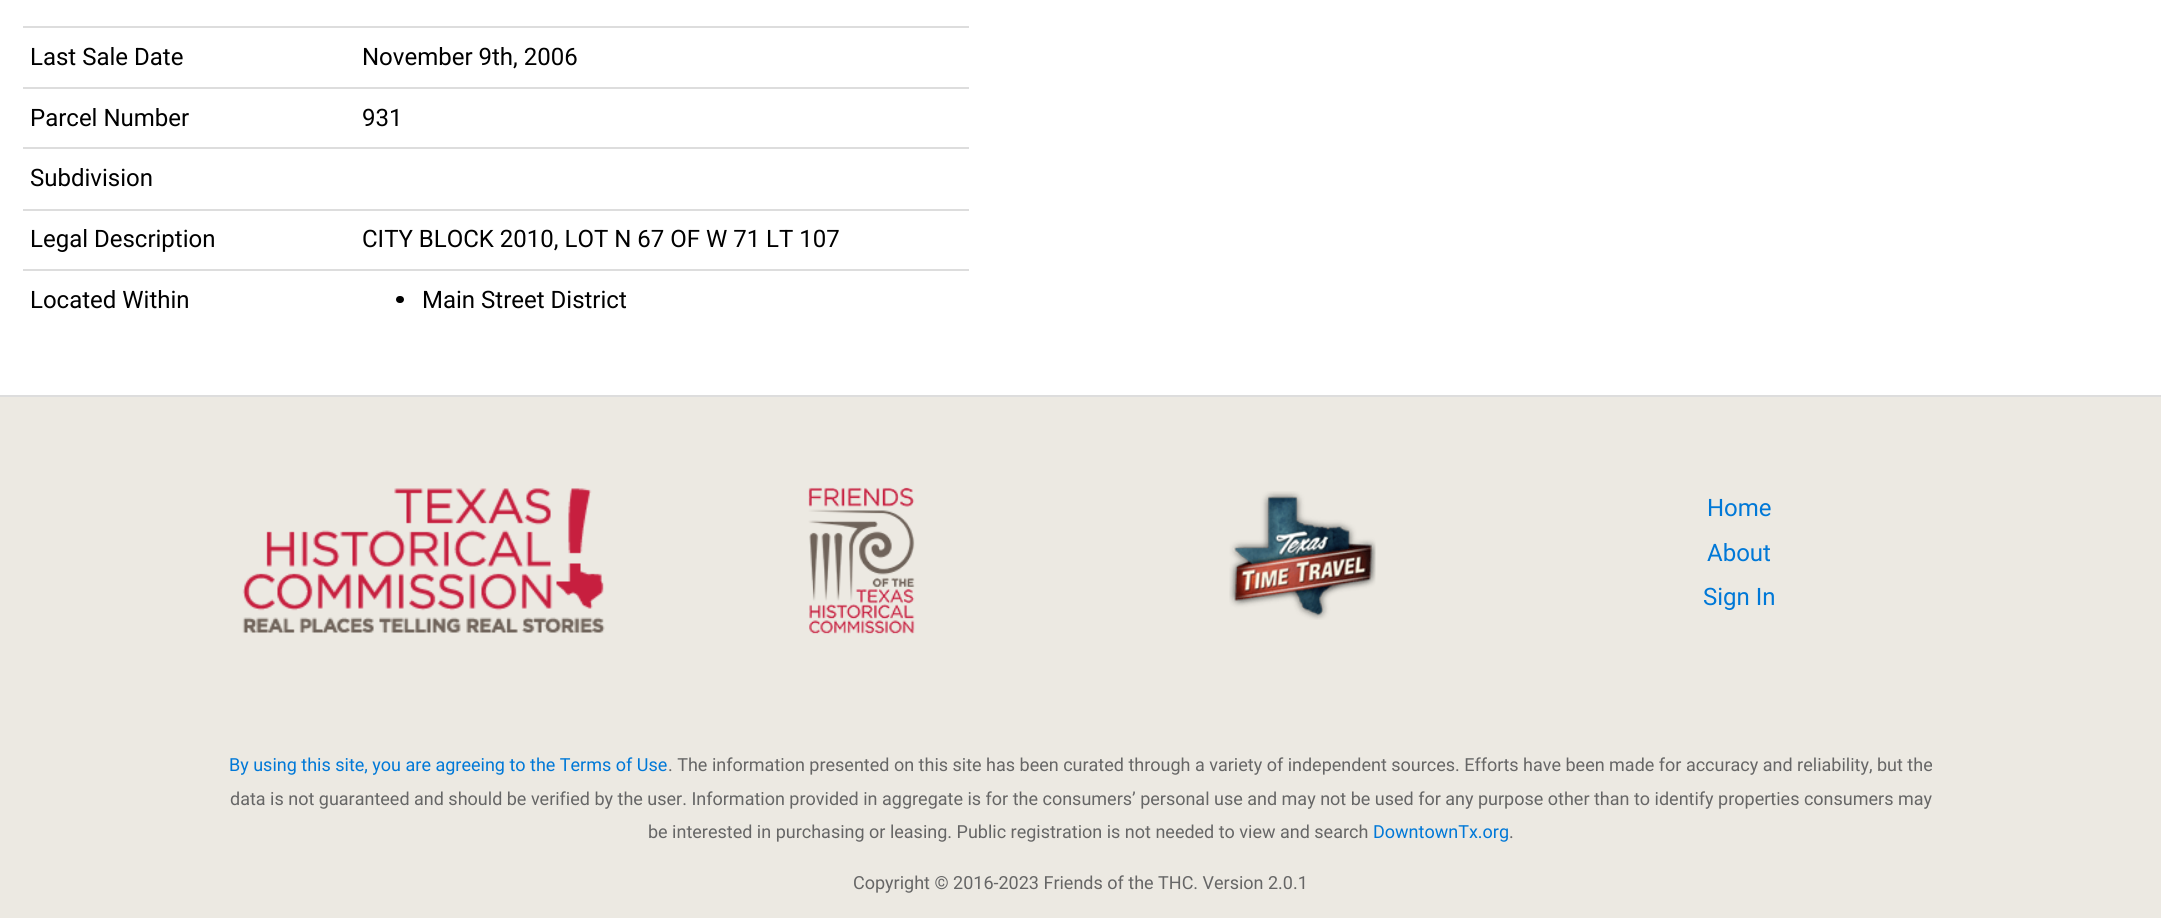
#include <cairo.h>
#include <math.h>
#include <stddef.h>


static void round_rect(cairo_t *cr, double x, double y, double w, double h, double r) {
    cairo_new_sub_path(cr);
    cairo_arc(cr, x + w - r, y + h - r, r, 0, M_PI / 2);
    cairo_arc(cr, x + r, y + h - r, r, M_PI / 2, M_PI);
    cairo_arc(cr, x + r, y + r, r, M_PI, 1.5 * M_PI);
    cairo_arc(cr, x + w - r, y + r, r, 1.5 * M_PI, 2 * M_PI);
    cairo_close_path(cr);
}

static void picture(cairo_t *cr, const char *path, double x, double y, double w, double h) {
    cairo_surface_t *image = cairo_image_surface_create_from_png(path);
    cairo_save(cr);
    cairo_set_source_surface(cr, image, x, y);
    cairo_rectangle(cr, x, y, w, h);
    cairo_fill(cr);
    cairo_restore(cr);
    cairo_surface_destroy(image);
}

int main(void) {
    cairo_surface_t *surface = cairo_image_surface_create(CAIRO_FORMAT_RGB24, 2161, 918);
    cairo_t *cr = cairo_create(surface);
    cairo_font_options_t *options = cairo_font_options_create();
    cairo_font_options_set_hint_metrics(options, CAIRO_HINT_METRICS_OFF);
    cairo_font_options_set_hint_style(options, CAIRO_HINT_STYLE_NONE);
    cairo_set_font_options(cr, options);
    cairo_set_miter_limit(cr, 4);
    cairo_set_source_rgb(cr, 1, 1, 1);
    cairo_paint(cr);
    cairo_select_font_face(cr, "Roboto", CAIRO_FONT_SLANT_NORMAL, CAIRO_FONT_WEIGHT_NORMAL);
    cairo_set_font_size(cr, 24);
    cairo_set_source_rgb(cr, 0, 0, 0);
    cairo_move_to(cr, 30, 65);
    cairo_show_text(cr, "Last Sale Date");
    cairo_set_source_rgb(cr, 0.867, 0.867, 0.867);
    cairo_rectangle(cr, 23, 26, 946, 2);
    cairo_fill(cr);
    cairo_set_source_rgb(cr, 0, 0, 0);
    cairo_move_to(cr, 362, 65);
    cairo_show_text(cr, "November 9th, 2006");
    cairo_move_to(cr, 30, 126);
    cairo_show_text(cr, "Parcel Number");
    cairo_set_source_rgb(cr, 0.867, 0.867, 0.867);
    cairo_rectangle(cr, 23, 87, 946, 2);
    cairo_fill(cr);
    cairo_set_source_rgb(cr, 0, 0, 0);
    cairo_move_to(cr, 362, 126);
    cairo_show_text(cr, "931");
    cairo_set_source_rgb(cr, 0.867, 0.867, 0.867);
    cairo_rectangle(cr, 23, 147, 946, 2);
    cairo_fill(cr);
    cairo_set_source_rgb(cr, 0, 0, 0);
    cairo_move_to(cr, 30, 186);
    cairo_show_text(cr, "Subdivision");
    cairo_move_to(cr, 30, 247);
    cairo_show_text(cr, "Legal Description");
    cairo_set_source_rgb(cr, 0.867, 0.867, 0.867);
    cairo_rectangle(cr, 23, 209, 946, 2);
    cairo_fill(cr);
    cairo_set_source_rgb(cr, 0, 0, 0);
    cairo_move_to(cr, 362, 247);
    cairo_show_text(cr, "CITY BLOCK 2010, LOT N 67 OF W 71 LT 107");
    cairo_move_to(cr, 30, 308);
    cairo_show_text(cr, "Located Within");
    cairo_set_source_rgb(cr, 0.867, 0.867, 0.867);
    cairo_rectangle(cr, 23, 269, 946, 2);
    cairo_fill(cr);
    cairo_set_source_rgb(cr, 0, 0, 0);
    round_rect(cr, 396, 296, 8, 7, 3.5);
    cairo_fill(cr);
    cairo_move_to(cr, 422, 308);
    cairo_show_text(cr, "Main Street District");
    cairo_set_source_rgb(cr, 0.925, 0.914, 0.886);
    cairo_rectangle(cr, 0, 397, 2161, 521);
    cairo_fill(cr);
    cairo_set_source_rgb(cr, 0.867, 0.867, 0.867);
    cairo_rectangle(cr, 0, 395, 2161, 2);
    cairo_fill(cr);
    picture(cr, "img1.png", 242, 488, 363, 145);
    picture(cr, "img2.png", 808, 487, 107, 147);
    picture(cr, "img3.png", 1229, 491, 147, 129);
    cairo_set_source_rgb(cr, 0, 0.471, 0.843);
    cairo_move_to(cr, 1707, 516);
    cairo_show_text(cr, "Home");
    cairo_move_to(cr, 1707, 561);
    cairo_show_text(cr, "About");
    cairo_move_to(cr, 1703, 605);
    cairo_show_text(cr, "Sign In");
    cairo_set_font_size(cr, 18);
    cairo_move_to(cr, 229, 771);
    cairo_show_text(cr, "By using this site, you are agreeing to the Terms of Use");
    cairo_set_source_rgb(cr, 0.4, 0.4, 0.4);
    cairo_move_to(cr, 668, 771);
    cairo_show_text(cr, ". The information presented on this site has been curated through a variety of independent sources. Efforts have been made for accuracy and reliability, but the");
    cairo_move_to(cr, 230, 805);
    cairo_show_text(cr, "data is not guaranteed and should be verified by the user. Information provided in aggregate is for the consumers’ personal use and may not be used for any purpose other than to identify properties consumers may");
    cairo_move_to(cr, 648, 838);
    cairo_show_text(cr, "be interested in purchasing or leasing. Public registration is not needed to view and search");
    cairo_set_source_rgb(cr, 0, 0.471, 0.843);
    cairo_move_to(cr, 1373, 838);
    cairo_show_text(cr, "DowntownTx.org");
    cairo_set_source_rgb(cr, 0.4, 0.4, 0.4);
    cairo_move_to(cr, 1509, 838);
    cairo_show_text(cr, ".");
    cairo_move_to(cr, 853, 889);
    cairo_show_text(cr, "Copyright © 2016-2023 Friends of the THC. Version 2.0.1");
    cairo_surface_write_to_png(surface, "page.png");
    cairo_font_options_destroy(options);
    cairo_destroy(cr);
    cairo_surface_destroy(surface);
    return 0;
}
